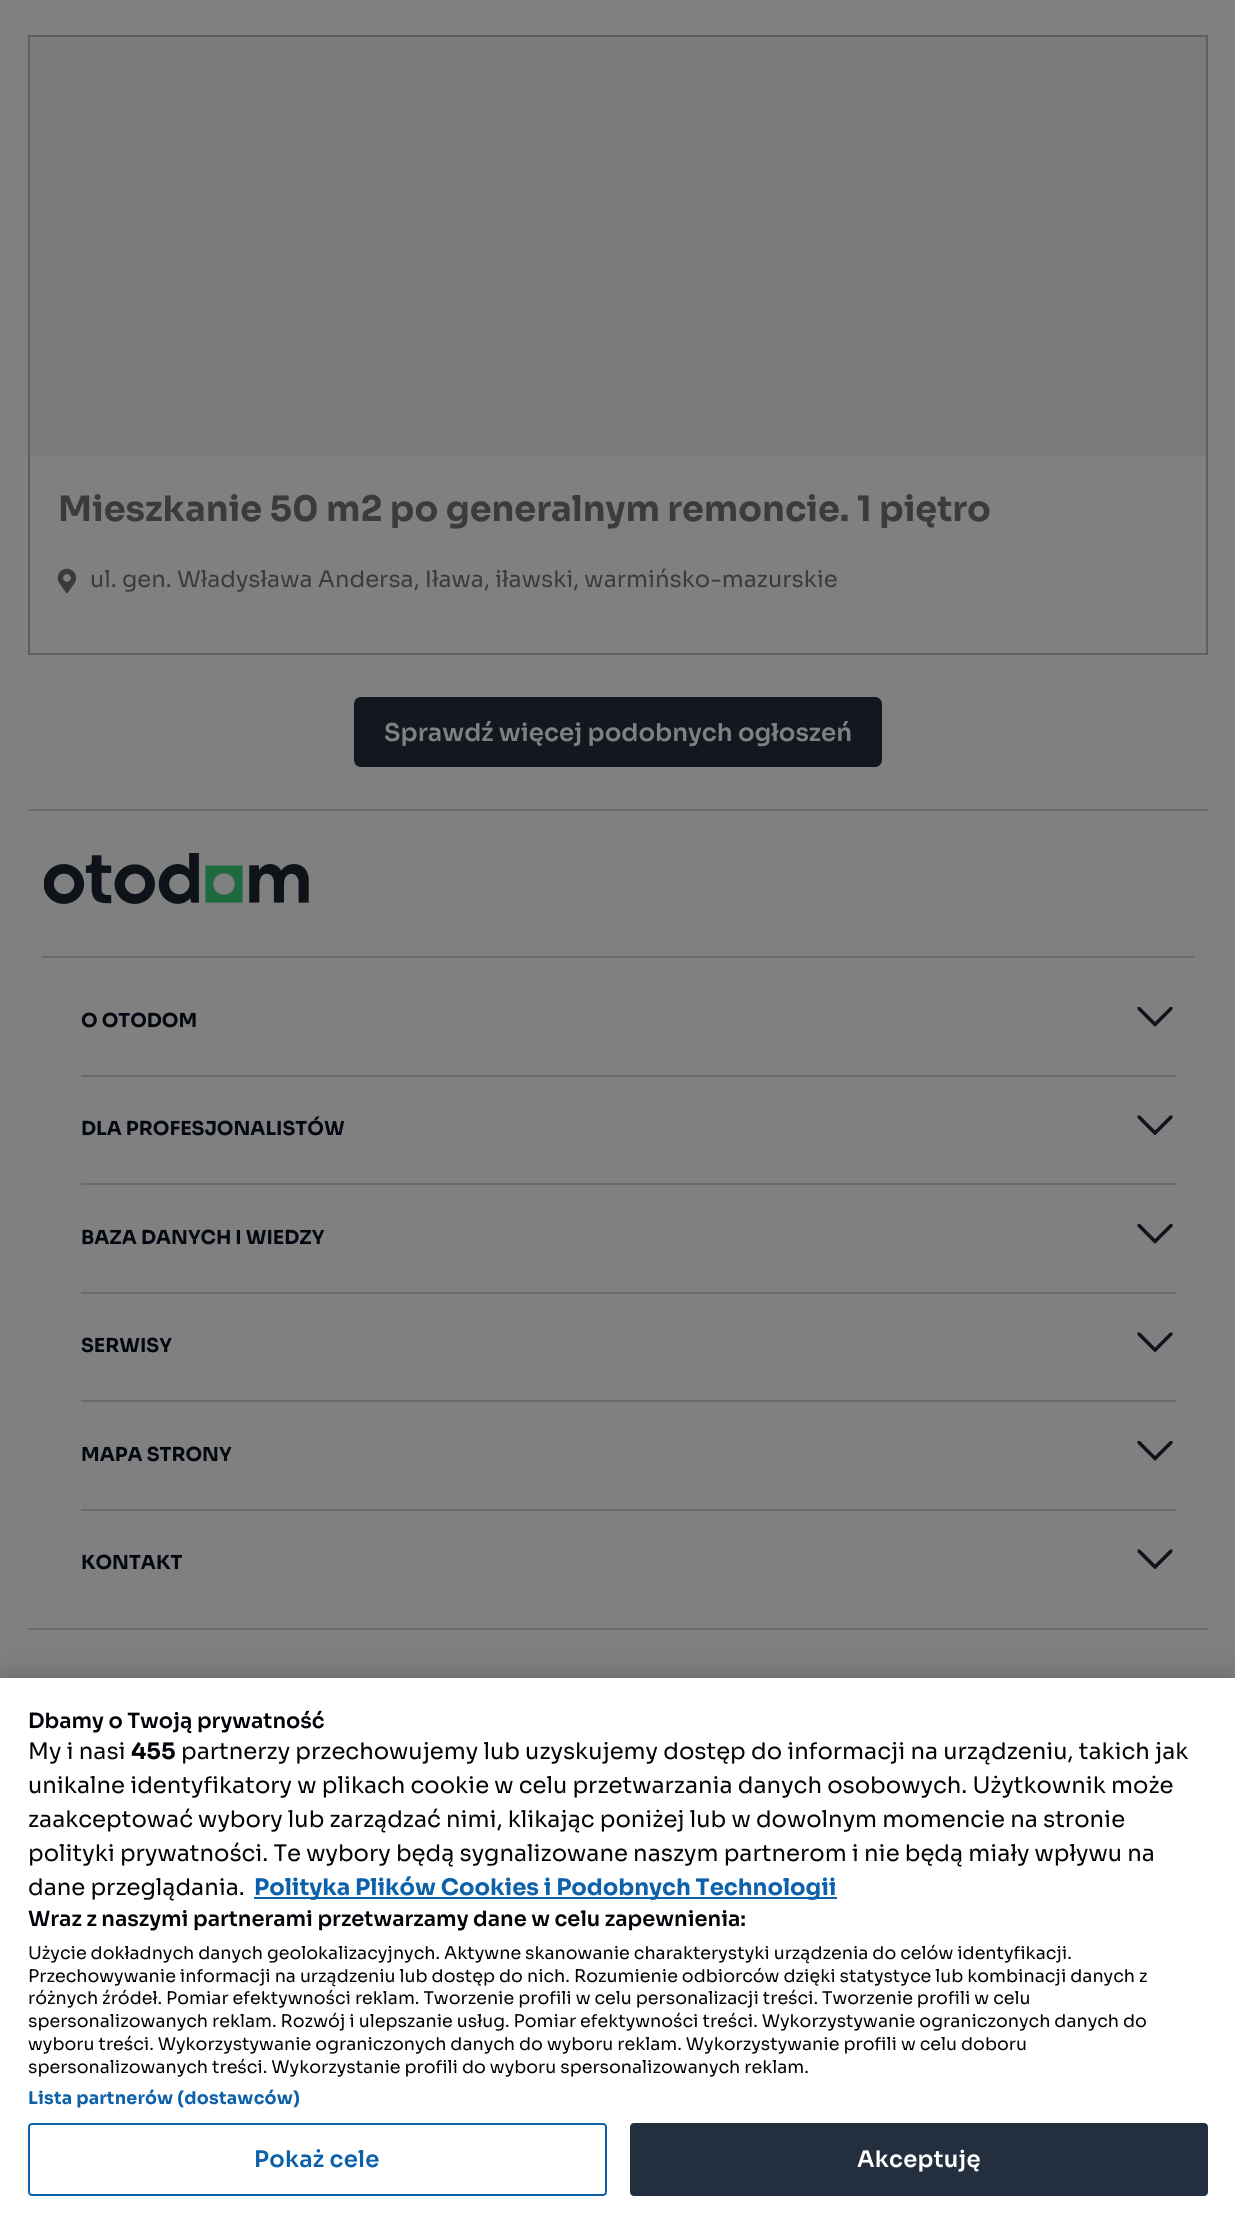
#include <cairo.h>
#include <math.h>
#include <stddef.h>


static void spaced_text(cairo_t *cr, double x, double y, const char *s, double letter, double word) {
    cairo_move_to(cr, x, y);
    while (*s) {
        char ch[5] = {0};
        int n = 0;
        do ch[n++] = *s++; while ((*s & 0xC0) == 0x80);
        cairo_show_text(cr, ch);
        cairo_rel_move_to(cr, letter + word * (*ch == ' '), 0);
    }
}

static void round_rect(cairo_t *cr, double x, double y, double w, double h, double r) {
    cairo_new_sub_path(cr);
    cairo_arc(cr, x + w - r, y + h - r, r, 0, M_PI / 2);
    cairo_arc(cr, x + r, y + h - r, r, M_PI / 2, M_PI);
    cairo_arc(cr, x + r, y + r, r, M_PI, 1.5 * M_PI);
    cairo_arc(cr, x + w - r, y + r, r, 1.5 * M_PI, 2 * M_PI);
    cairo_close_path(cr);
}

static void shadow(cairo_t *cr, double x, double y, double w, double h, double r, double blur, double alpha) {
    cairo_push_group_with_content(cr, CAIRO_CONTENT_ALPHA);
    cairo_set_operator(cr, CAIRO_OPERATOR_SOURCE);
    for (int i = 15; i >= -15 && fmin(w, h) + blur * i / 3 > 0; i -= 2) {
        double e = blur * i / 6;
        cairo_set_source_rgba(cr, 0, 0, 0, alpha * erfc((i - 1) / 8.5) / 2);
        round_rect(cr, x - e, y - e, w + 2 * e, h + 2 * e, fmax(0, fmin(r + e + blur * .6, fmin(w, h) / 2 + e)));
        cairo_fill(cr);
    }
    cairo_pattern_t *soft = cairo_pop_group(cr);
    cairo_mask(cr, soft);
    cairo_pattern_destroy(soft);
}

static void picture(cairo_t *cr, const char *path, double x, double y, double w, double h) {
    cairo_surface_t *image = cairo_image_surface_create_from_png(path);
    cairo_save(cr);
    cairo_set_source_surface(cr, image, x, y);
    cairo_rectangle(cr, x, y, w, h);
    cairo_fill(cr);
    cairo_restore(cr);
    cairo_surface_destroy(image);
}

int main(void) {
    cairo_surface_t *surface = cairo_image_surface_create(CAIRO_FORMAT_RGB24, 1235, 2223);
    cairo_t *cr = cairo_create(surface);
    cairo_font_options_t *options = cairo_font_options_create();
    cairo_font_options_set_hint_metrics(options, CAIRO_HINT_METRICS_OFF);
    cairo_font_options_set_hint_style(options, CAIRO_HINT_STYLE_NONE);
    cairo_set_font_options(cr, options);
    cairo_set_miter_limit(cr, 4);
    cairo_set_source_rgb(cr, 0.502, 0.502, 0.502);
    cairo_paint(cr);
    cairo_rectangle(cr, 29, 36, 1178, 618);
    cairo_set_source_rgb(cr, 0.373, 0.373, 0.373);
    cairo_stroke(cr);
    cairo_set_source_rgb(cr, 0.486, 0.486, 0.486);
    cairo_rectangle(cr, 30, 37, 1176, 420);
    cairo_fill(cr);
    cairo_select_font_face(cr, "Sora", CAIRO_FONT_SLANT_NORMAL, CAIRO_FONT_WEIGHT_BOLD);
    cairo_set_font_size(cr, 35);
    cairo_set_source_rgb(cr, 0.231, 0.231, 0.231);
    cairo_move_to(cr, 58, 521);
    cairo_show_text(cr, "Mieszkanie 50 m2 po generalnym remoncie. 1 piętro");
    picture(cr, "img1.png", 57, 568, 20, 26);
    cairo_select_font_face(cr, "Sora", CAIRO_FONT_SLANT_NORMAL, CAIRO_FONT_WEIGHT_NORMAL);
    cairo_set_font_size(cr, 22.75);
    cairo_move_to(cr, 90, 587);
    cairo_show_text(cr, "ul. gen. Władysława Andersa, Iława, iławski, warmińsko-mazurskie");
    cairo_set_source_rgb(cr, 0.071, 0.09, 0.125);
    round_rect(cr, 355, 698, 526, 68, 6);
    cairo_fill_preserve(cr);
    cairo_stroke(cr);
    cairo_select_font_face(cr, "Sora SemiBold", CAIRO_FONT_SLANT_NORMAL, CAIRO_FONT_WEIGHT_NORMAL);
    cairo_set_font_size(cr, 24.5);
    cairo_set_source_rgb(cr, 0.502, 0.502, 0.502);
    cairo_move_to(cr, 384, 741);
    cairo_show_text(cr, "Sprawdź więcej podobnych ogłoszeń");
    cairo_set_source_rgb(cr, 0.416, 0.42, 0.427);
    cairo_rectangle(cr, 28, 809, 1180, 2);
    cairo_fill(cr);
    picture(cr, "img2.png", 44, 853, 265, 51);
    cairo_rectangle(cr, 42, 956, 1152, 2);
    cairo_fill(cr);
    cairo_rectangle(cr, 81, 1075, 1095, 2);
    cairo_fill(cr);
    cairo_select_font_face(cr, "Sora", CAIRO_FONT_SLANT_NORMAL, CAIRO_FONT_WEIGHT_BOLD);
    cairo_set_font_size(cr, 19.25);
    cairo_set_source_rgb(cr, 0.016, 0.035, 0.067);
    cairo_move_to(cr, 81, 1027);
    cairo_show_text(cr, "O OTODOM");
    cairo_set_source_rgb(cr, 0.055, 0.075, 0.11);
    cairo_set_fill_rule(cr, CAIRO_FILL_RULE_EVEN_ODD);
    cairo_new_path(cr);
    cairo_move_to(cr, 1137.5, 1007);
    cairo_line_to(cr, 1140, 1007);
    cairo_line_to(cr, 1155, 1022);
    cairo_line_to(cr, 1170, 1007);
    cairo_line_to(cr, 1172.5, 1007);
    cairo_line_to(cr, 1172.5, 1009.5);
    cairo_line_to(cr, 1155.5, 1026.5);
    cairo_line_to(cr, 1154.5, 1026.5);
    cairo_line_to(cr, 1137.5, 1009.5);
    cairo_close_path(cr);
    cairo_fill(cr);
    cairo_set_source_rgb(cr, 0.416, 0.42, 0.427);
    cairo_rectangle(cr, 81, 1183, 1095, 2);
    cairo_fill(cr);
    cairo_set_source_rgb(cr, 0.016, 0.035, 0.067);
    cairo_move_to(cr, 81, 1135);
    cairo_show_text(cr, "DLA PROFESJONALISTÓW");
    cairo_set_source_rgb(cr, 0.055, 0.075, 0.11);
    cairo_new_path(cr);
    cairo_move_to(cr, 1137.5, 1115.5);
    cairo_line_to(cr, 1140, 1115.5);
    cairo_line_to(cr, 1155, 1130.5);
    cairo_line_to(cr, 1170, 1115.5);
    cairo_line_to(cr, 1172.5, 1115.5);
    cairo_line_to(cr, 1172.5, 1118);
    cairo_line_to(cr, 1155.5, 1135);
    cairo_line_to(cr, 1154.5, 1135);
    cairo_line_to(cr, 1137.5, 1118);
    cairo_close_path(cr);
    cairo_fill(cr);
    cairo_set_source_rgb(cr, 0.416, 0.42, 0.427);
    cairo_rectangle(cr, 81, 1292, 1095, 2);
    cairo_fill(cr);
    cairo_set_source_rgb(cr, 0.016, 0.035, 0.067);
    cairo_move_to(cr, 81, 1244);
    cairo_show_text(cr, "BAZA DANYCH I WIEDZY");
    cairo_set_source_rgb(cr, 0.055, 0.075, 0.11);
    cairo_new_path(cr);
    cairo_move_to(cr, 1137.5, 1224);
    cairo_line_to(cr, 1140, 1224);
    cairo_line_to(cr, 1155, 1239);
    cairo_line_to(cr, 1170, 1224);
    cairo_line_to(cr, 1172.5, 1224);
    cairo_line_to(cr, 1172.5, 1226.5);
    cairo_line_to(cr, 1155.5, 1243.5);
    cairo_line_to(cr, 1154.5, 1243.5);
    cairo_line_to(cr, 1137.5, 1226.5);
    cairo_close_path(cr);
    cairo_fill(cr);
    cairo_set_source_rgb(cr, 0.416, 0.42, 0.427);
    cairo_rectangle(cr, 81, 1400, 1095, 2);
    cairo_fill(cr);
    cairo_set_source_rgb(cr, 0.016, 0.035, 0.067);
    cairo_move_to(cr, 81, 1352);
    cairo_show_text(cr, "SERWISY");
    cairo_set_source_rgb(cr, 0.055, 0.075, 0.11);
    cairo_new_path(cr);
    cairo_move_to(cr, 1137.5, 1332.5);
    cairo_line_to(cr, 1140, 1332.5);
    cairo_line_to(cr, 1155, 1347.5);
    cairo_line_to(cr, 1170, 1332.5);
    cairo_line_to(cr, 1172.5, 1332.5);
    cairo_line_to(cr, 1172.5, 1335);
    cairo_line_to(cr, 1155.5, 1352);
    cairo_line_to(cr, 1154.5, 1352);
    cairo_line_to(cr, 1137.5, 1335);
    cairo_close_path(cr);
    cairo_fill(cr);
    cairo_set_source_rgb(cr, 0.416, 0.42, 0.427);
    cairo_rectangle(cr, 81, 1509, 1095, 2);
    cairo_fill(cr);
    cairo_set_source_rgb(cr, 0.016, 0.035, 0.067);
    cairo_move_to(cr, 81, 1461);
    cairo_show_text(cr, "MAPA STRONY");
    cairo_set_source_rgb(cr, 0.055, 0.075, 0.11);
    cairo_new_path(cr);
    cairo_move_to(cr, 1137.5, 1441);
    cairo_line_to(cr, 1140, 1441);
    cairo_line_to(cr, 1155, 1456);
    cairo_line_to(cr, 1170, 1441);
    cairo_line_to(cr, 1172.5, 1441);
    cairo_line_to(cr, 1172.5, 1443.5);
    cairo_line_to(cr, 1155.5, 1460.5);
    cairo_line_to(cr, 1154.5, 1460.5);
    cairo_line_to(cr, 1137.5, 1443.5);
    cairo_close_path(cr);
    cairo_fill(cr);
    cairo_set_source_rgb(cr, 0.016, 0.035, 0.067);
    cairo_move_to(cr, 81, 1569);
    cairo_show_text(cr, "KONTAKT");
    cairo_set_source_rgb(cr, 0.055, 0.075, 0.11);
    cairo_new_path(cr);
    cairo_move_to(cr, 1137.5, 1549.5);
    cairo_line_to(cr, 1140, 1549.5);
    cairo_line_to(cr, 1155, 1564.5);
    cairo_line_to(cr, 1170, 1549.5);
    cairo_line_to(cr, 1172.5, 1549.5);
    cairo_line_to(cr, 1172.5, 1552);
    cairo_line_to(cr, 1155.5, 1569);
    cairo_line_to(cr, 1154.5, 1569);
    cairo_line_to(cr, 1137.5, 1552);
    cairo_close_path(cr);
    cairo_fill(cr);
    cairo_set_source_rgb(cr, 0.416, 0.42, 0.427);
    cairo_rectangle(cr, 28, 1628, 1180, 2);
    cairo_fill(cr);
    cairo_set_source_rgb(cr, 0, 0, 0);
    shadow(cr, 0, 1678, 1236, 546, 0, 16, 0.2);
    cairo_set_source_rgb(cr, 1, 1, 1);
    cairo_rectangle(cr, 0, 1678, 1235, 545);
    cairo_fill(cr);
    cairo_select_font_face(cr, "Sora SemiBold", CAIRO_FONT_SLANT_NORMAL, CAIRO_FONT_WEIGHT_NORMAL);
    cairo_set_font_size(cr, 21);
    cairo_set_source_rgb(cr, 0.008, 0.012, 0.035);
    cairo_move_to(cr, 28, 1728);
    cairo_show_text(cr, "Dbamy o Twoją prywatność");
    cairo_select_font_face(cr, "Sora", CAIRO_FONT_SLANT_NORMAL, CAIRO_FONT_WEIGHT_NORMAL);
    cairo_set_font_size(cr, 22.75);
    cairo_move_to(cr, 28, 1759);
    cairo_show_text(cr, "My i nasi");
    cairo_select_font_face(cr, "Sora", CAIRO_FONT_SLANT_NORMAL, CAIRO_FONT_WEIGHT_BOLD);
    cairo_move_to(cr, 131, 1759);
    cairo_show_text(cr, "455");
    cairo_select_font_face(cr, "Sora", CAIRO_FONT_SLANT_NORMAL, CAIRO_FONT_WEIGHT_NORMAL);
    cairo_move_to(cr, 181, 1759);
    cairo_show_text(cr, "partnerzy przechowujemy lub uzyskujemy dostęp do informacji na urządzeniu, takich jak");
    cairo_move_to(cr, 28, 1793);
    cairo_show_text(cr, "unikalne identyfikatory w plikach cookie w celu przetwarzania danych osobowych. Użytkownik może");
    cairo_move_to(cr, 28, 1827);
    cairo_show_text(cr, "zaakceptować wybory lub zarządzać nimi, klikając poniżej lub w dowolnym momencie na stronie");
    cairo_move_to(cr, 28, 1861);
    cairo_show_text(cr, "polityki prywatności. Te wybory będą sygnalizowane naszym partnerom i nie będą miały wpływu na");
    cairo_move_to(cr, 28, 1895);
    cairo_show_text(cr, "dane przeglądania.");
    cairo_set_source_rgb(cr, 0.051, 0.38, 0.671);
    cairo_rectangle(cr, 254, 1897, 583, 2);
    cairo_fill(cr);
    cairo_select_font_face(cr, "Sora", CAIRO_FONT_SLANT_NORMAL, CAIRO_FONT_WEIGHT_BOLD);
    cairo_move_to(cr, 254, 1895);
    cairo_show_text(cr, "Polityka Plików Cookies i Podobnych Technologii");
    cairo_select_font_face(cr, "Sora SemiBold", CAIRO_FONT_SLANT_NORMAL, CAIRO_FONT_WEIGHT_NORMAL);
    cairo_set_font_size(cr, 21);
    cairo_set_source_rgb(cr, 0.008, 0.012, 0.035);
    cairo_move_to(cr, 28, 1926);
    cairo_show_text(cr, "Wraz z naszymi partnerami przetwarzamy dane w celu zapewnienia:");
    cairo_select_font_face(cr, "Sora", CAIRO_FONT_SLANT_NORMAL, CAIRO_FONT_WEIGHT_NORMAL);
    cairo_set_font_size(cr, 17.5);
    cairo_move_to(cr, 28, 1959);
    cairo_show_text(cr, "Użycie dokładnych danych geolokalizacyjnych. Aktywne skanowanie charakterystyki urządzenia do celów identyfikacji.");
    cairo_move_to(cr, 28, 1982);
    cairo_show_text(cr, "Przechowywanie informacji na urządzeniu lub dostęp do nich. Rozumienie odbiorców dzięki statystyce lub kombinacji danych z");
    cairo_move_to(cr, 28, 2004);
    cairo_show_text(cr, "różnych źródeł. Pomiar efektywności reklam. Tworzenie profili w celu personalizacji treści. Tworzenie profili w celu");
    cairo_move_to(cr, 28, 2027);
    cairo_show_text(cr, "spersonalizowanych reklam. Rozwój i ulepszanie usług. Pomiar efektywności treści. Wykorzystywanie ograniczonych danych do");
    cairo_move_to(cr, 28, 2050);
    cairo_show_text(cr, "wyboru treści. Wykorzystywanie ograniczonych danych do wyboru reklam. Wykorzystywanie profili w celu doboru");
    cairo_move_to(cr, 28, 2073);
    cairo_show_text(cr, "spersonalizowanych treści. Wykorzystanie profili do wyboru spersonalizowanych reklam.");
    cairo_select_font_face(cr, "Sora", CAIRO_FONT_SLANT_NORMAL, CAIRO_FONT_WEIGHT_BOLD);
    cairo_set_source_rgb(cr, 0.051, 0.38, 0.671);
    spaced_text(cr, 28, 2104, "Lista partnerów (dostawców)", 0.2, 0);
    round_rect(cr, 29, 2124, 577, 71, 3);
    cairo_stroke(cr);
    cairo_select_font_face(cr, "Sora SemiBold", CAIRO_FONT_SLANT_NORMAL, CAIRO_FONT_WEIGHT_NORMAL);
    cairo_set_font_size(cr, 22.75);
    spaced_text(cr, 254, 2167, "Pokaż cele", 0.25, 0);
    cairo_set_source_rgb(cr, 0.137, 0.18, 0.247);
    round_rect(cr, 631, 2124, 576, 71, 3);
    cairo_fill_preserve(cr);
    cairo_stroke(cr);
    cairo_set_source_rgb(cr, 1, 1, 1);
    spaced_text(cr, 857, 2167, "Akceptuję", 0.25, 0);
    cairo_surface_write_to_png(surface, "page.png");
    cairo_font_options_destroy(options);
    cairo_destroy(cr);
    cairo_surface_destroy(surface);
    return 0;
}
